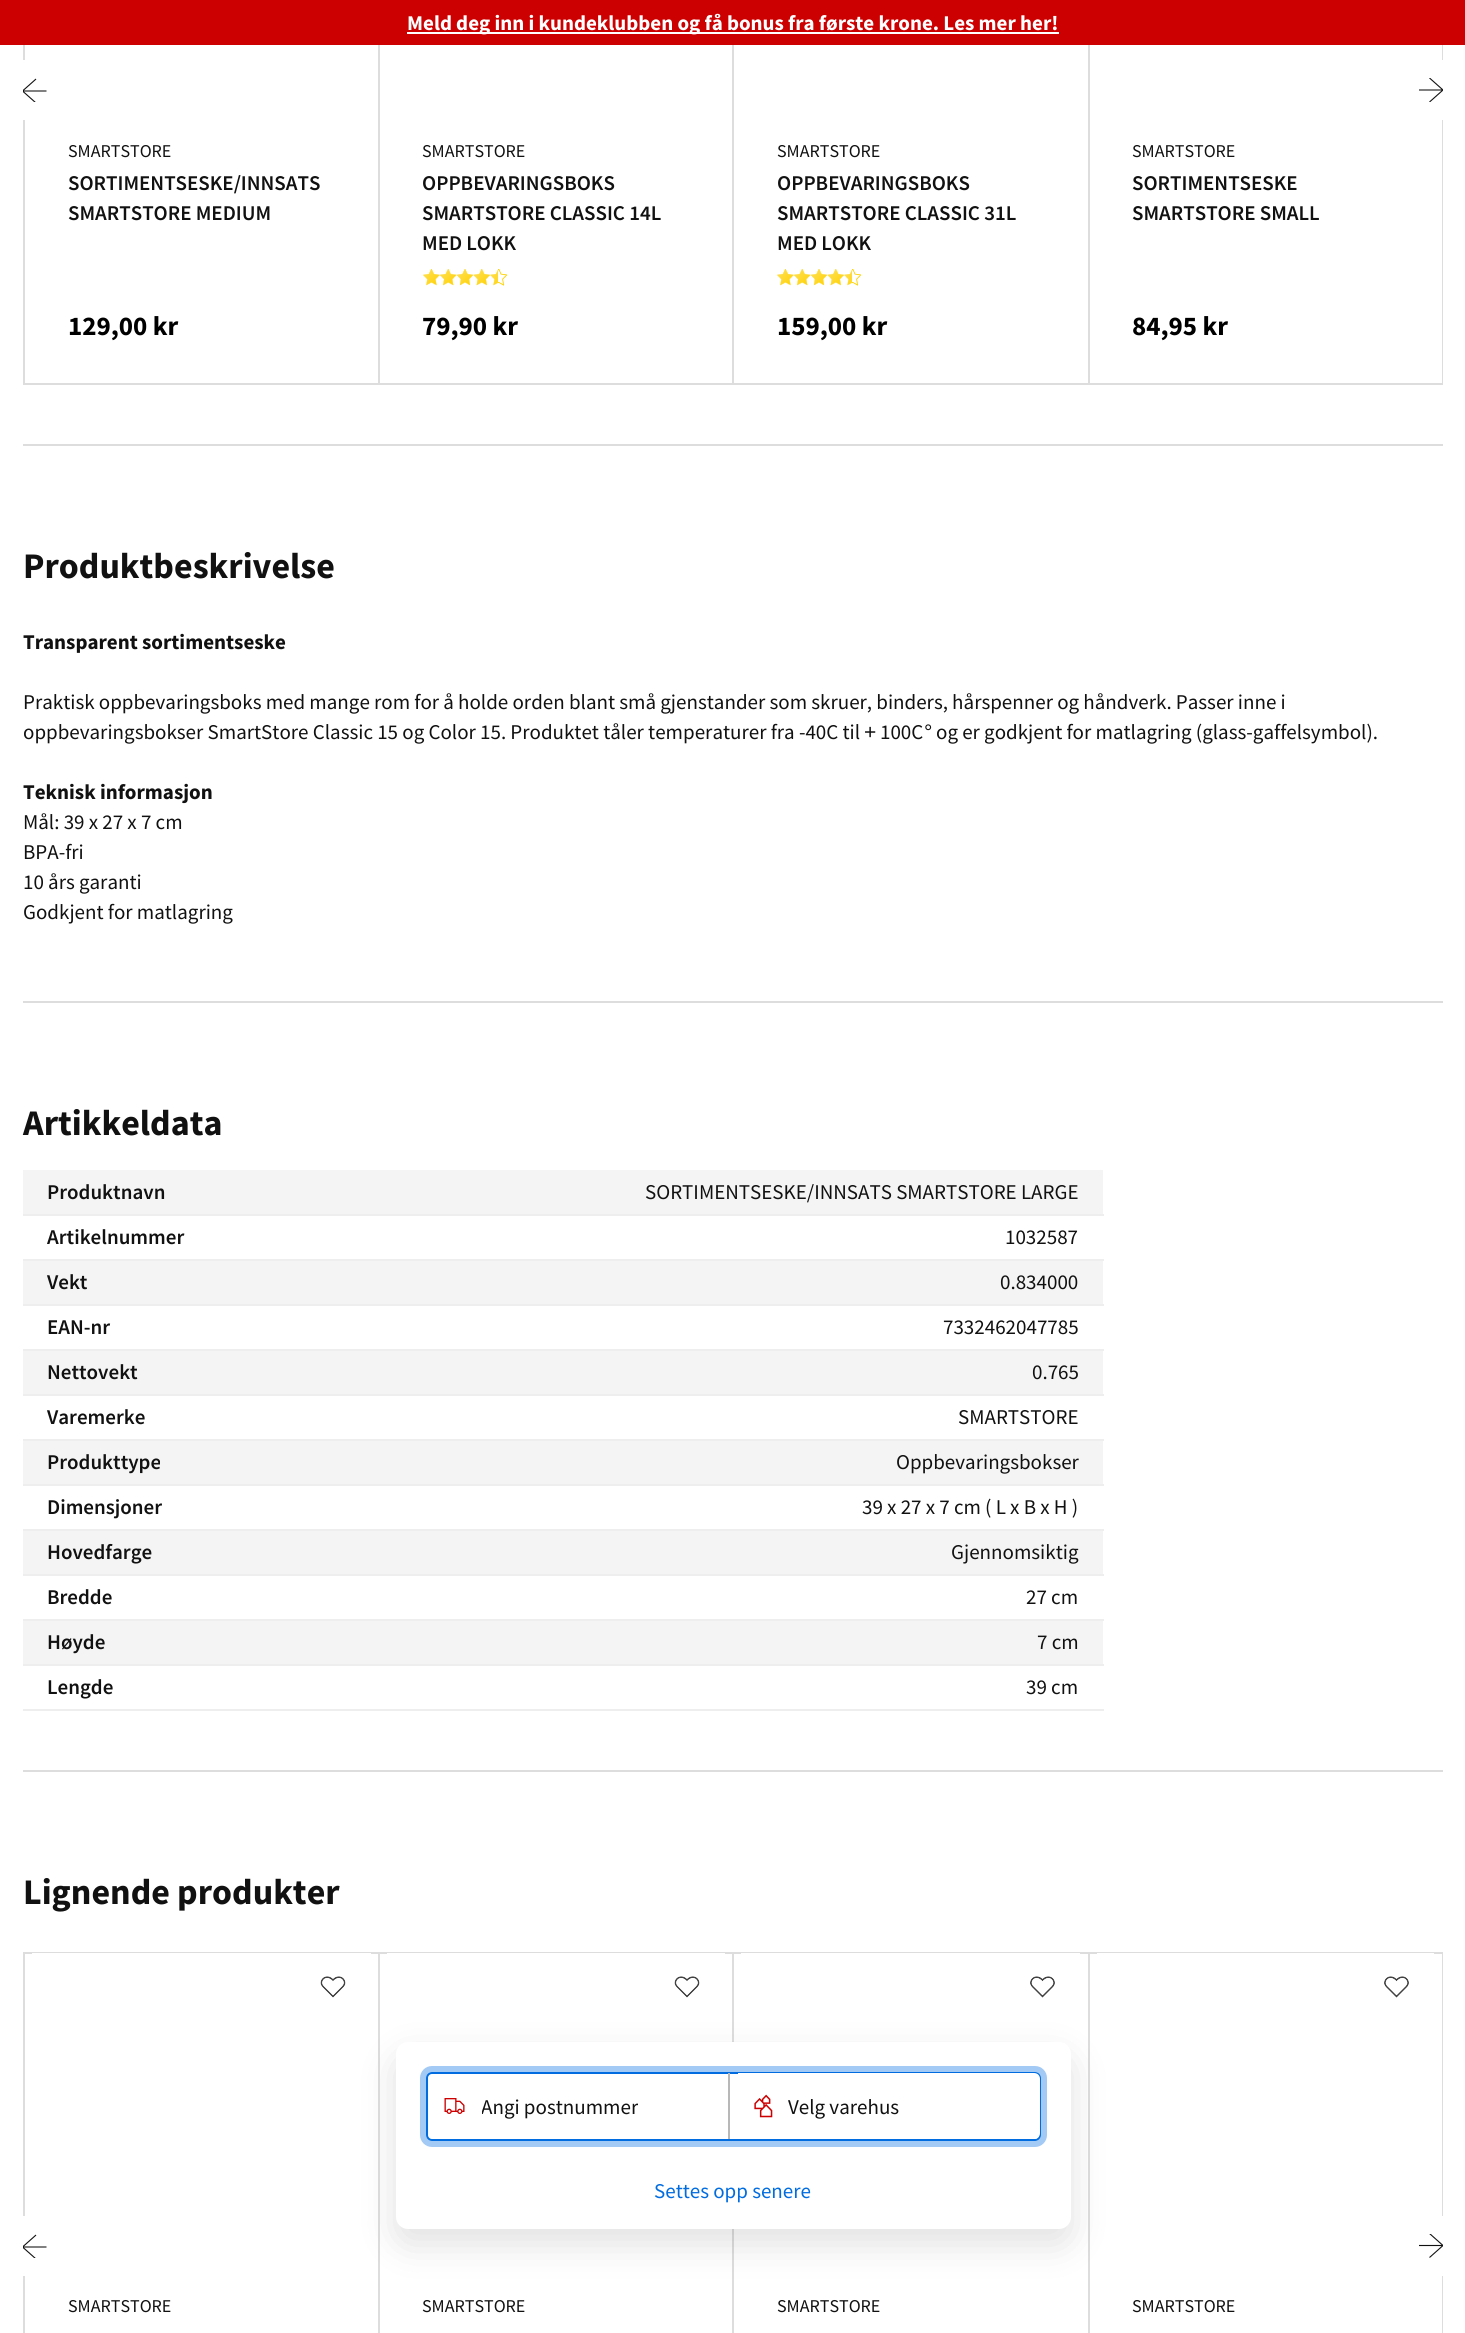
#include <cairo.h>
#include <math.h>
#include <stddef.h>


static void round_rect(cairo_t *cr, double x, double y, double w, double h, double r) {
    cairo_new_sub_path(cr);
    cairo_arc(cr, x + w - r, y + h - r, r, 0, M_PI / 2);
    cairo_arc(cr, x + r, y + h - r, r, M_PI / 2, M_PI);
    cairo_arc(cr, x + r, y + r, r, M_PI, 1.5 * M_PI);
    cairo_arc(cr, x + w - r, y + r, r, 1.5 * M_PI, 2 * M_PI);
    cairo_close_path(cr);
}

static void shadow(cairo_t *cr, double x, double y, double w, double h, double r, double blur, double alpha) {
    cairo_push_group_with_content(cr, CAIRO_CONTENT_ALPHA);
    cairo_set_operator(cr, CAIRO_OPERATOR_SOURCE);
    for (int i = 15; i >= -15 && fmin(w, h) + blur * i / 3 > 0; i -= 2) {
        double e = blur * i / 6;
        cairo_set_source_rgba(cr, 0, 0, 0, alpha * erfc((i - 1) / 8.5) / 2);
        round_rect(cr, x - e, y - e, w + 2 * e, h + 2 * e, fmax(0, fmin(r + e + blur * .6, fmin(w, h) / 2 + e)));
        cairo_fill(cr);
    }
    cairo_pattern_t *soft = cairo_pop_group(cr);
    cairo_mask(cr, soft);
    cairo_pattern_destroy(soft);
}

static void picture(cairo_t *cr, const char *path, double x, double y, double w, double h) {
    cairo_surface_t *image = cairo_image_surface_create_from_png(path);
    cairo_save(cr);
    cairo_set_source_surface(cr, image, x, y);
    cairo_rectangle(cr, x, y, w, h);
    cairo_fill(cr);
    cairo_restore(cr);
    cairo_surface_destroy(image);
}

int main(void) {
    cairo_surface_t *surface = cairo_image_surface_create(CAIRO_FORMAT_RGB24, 1465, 2333);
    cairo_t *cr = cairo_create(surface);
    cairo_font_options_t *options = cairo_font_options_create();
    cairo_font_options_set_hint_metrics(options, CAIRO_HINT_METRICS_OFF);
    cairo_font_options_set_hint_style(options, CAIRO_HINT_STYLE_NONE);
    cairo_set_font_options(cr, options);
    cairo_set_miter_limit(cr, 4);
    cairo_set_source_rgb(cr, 1, 1, 1);
    cairo_paint(cr);
    cairo_set_source_rgb(cr, 0.8, 0, 0);
    cairo_rectangle(cr, 0, 0, 1465, 45);
    cairo_fill(cr);
    cairo_set_source_rgb(cr, 1, 1, 1);
    cairo_rectangle(cr, 407, 32, 652, 2);
    cairo_fill(cr);
    cairo_select_font_face(cr, "Source Sans Pro", CAIRO_FONT_SLANT_NORMAL, CAIRO_FONT_WEIGHT_BOLD);
    cairo_set_font_size(cr, 21);
    cairo_move_to(cr, 407, 30);
    cairo_show_text(cr, "Meld deg inn i kundeklubben og få bonus fra første krone. Les mer her!");
    cairo_set_source_rgb(cr, 0.867, 0.867, 0.867);
    cairo_rectangle(cr, 23, 444, 1420, 2);
    cairo_fill(cr);
    cairo_rectangle(cr, 23, 383, 1420, 2);
    cairo_fill(cr);
    cairo_rectangle(cr, 23, 45, 2, 339);
    cairo_fill(cr);
    cairo_set_source_rgb(cr, 1, 1, 1);
    cairo_rectangle(cr, 23, 60, 2, 60);
    cairo_fill(cr);
    cairo_save(cr);
    cairo_rectangle(cr, 23, 78, 24, 24);
    cairo_clip(cr);
    cairo_new_path(cr);
    cairo_move_to(cr, 36, 79);
    cairo_line_to(cr, 22.5, 91);
    cairo_line_to(cr, 36, 103);
    cairo_move_to(cr, 22.5, 91);
    cairo_line_to(cr, 46.5, 91);
    cairo_set_source_rgb(cr, 0.067, 0.067, 0.067);
    cairo_set_line_width(cr, 1.1);
    cairo_stroke(cr);
    cairo_restore(cr);
    cairo_set_source_rgb(cr, 0.867, 0.867, 0.867);
    cairo_rectangle(cr, 1442, 45, 1, 339);
    cairo_fill(cr);
    cairo_set_source_rgb(cr, 1, 1, 1);
    cairo_rectangle(cr, 1442, 60, 1, 60);
    cairo_fill(cr);
    cairo_save(cr);
    cairo_rectangle(cr, 1419, 78, 24, 24);
    cairo_clip(cr);
    cairo_new_path(cr);
    cairo_move_to(cr, 1429.5, 102);
    cairo_line_to(cr, 1443, 90);
    cairo_line_to(cr, 1429.5, 78);
    cairo_move_to(cr, 1443, 90);
    cairo_line_to(cr, 1419, 90);
    cairo_set_source_rgb(cr, 0.067, 0.067, 0.067);
    cairo_set_line_width(cr, 1.1);
    cairo_stroke(cr);
    cairo_restore(cr);
    cairo_select_font_face(cr, "Source Sans Pro", CAIRO_FONT_SLANT_NORMAL, CAIRO_FONT_WEIGHT_NORMAL);
    cairo_set_font_size(cr, 18);
    cairo_set_source_rgb(cr, 0.067, 0.067, 0.067);
    cairo_move_to(cr, 68, 157);
    cairo_show_text(cr, "SMARTSTORE");
    cairo_select_font_face(cr, "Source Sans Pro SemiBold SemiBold", CAIRO_FONT_SLANT_NORMAL, CAIRO_FONT_WEIGHT_NORMAL);
    cairo_set_font_size(cr, 21);
    cairo_move_to(cr, 68, 190);
    cairo_show_text(cr, "SORTIMENTSESKE/INNSATS");
    cairo_move_to(cr, 68, 220);
    cairo_show_text(cr, "SMARTSTORE MEDIUM");
    cairo_select_font_face(cr, "Source Sans Pro", CAIRO_FONT_SLANT_NORMAL, CAIRO_FONT_WEIGHT_BOLD);
    cairo_set_font_size(cr, 27);
    cairo_set_source_rgb(cr, 0, 0, 0);
    cairo_move_to(cr, 68, 335);
    cairo_show_text(cr, "129,00 kr");
    cairo_set_source_rgb(cr, 0.867, 0.867, 0.867);
    cairo_rectangle(cr, 378, 45, 2, 339);
    cairo_fill(cr);
    cairo_select_font_face(cr, "Source Sans Pro", CAIRO_FONT_SLANT_NORMAL, CAIRO_FONT_WEIGHT_NORMAL);
    cairo_set_font_size(cr, 18);
    cairo_set_source_rgb(cr, 0.067, 0.067, 0.067);
    cairo_move_to(cr, 422, 157);
    cairo_show_text(cr, "SMARTSTORE");
    cairo_select_font_face(cr, "Source Sans Pro SemiBold SemiBold", CAIRO_FONT_SLANT_NORMAL, CAIRO_FONT_WEIGHT_NORMAL);
    cairo_set_font_size(cr, 21);
    cairo_move_to(cr, 422, 190);
    cairo_show_text(cr, "OPPBEVARINGSBOKS");
    cairo_move_to(cr, 422, 220);
    cairo_show_text(cr, "SMARTSTORE CLASSIC 14L");
    cairo_move_to(cr, 422, 250);
    cairo_show_text(cr, "MED LOKK");
    picture(cr, "img1.png", 423, 269, 84, 17);
    picture(cr, "img2.png", 498, 269, 9, 17);
    cairo_select_font_face(cr, "Source Sans Pro", CAIRO_FONT_SLANT_NORMAL, CAIRO_FONT_WEIGHT_BOLD);
    cairo_set_font_size(cr, 27);
    cairo_set_source_rgb(cr, 0, 0, 0);
    cairo_move_to(cr, 422, 335);
    cairo_show_text(cr, "79,90 kr");
    cairo_set_source_rgb(cr, 0.867, 0.867, 0.867);
    cairo_rectangle(cr, 732, 45, 2, 339);
    cairo_fill(cr);
    cairo_select_font_face(cr, "Source Sans Pro", CAIRO_FONT_SLANT_NORMAL, CAIRO_FONT_WEIGHT_NORMAL);
    cairo_set_font_size(cr, 18);
    cairo_set_source_rgb(cr, 0.067, 0.067, 0.067);
    cairo_move_to(cr, 777, 157);
    cairo_show_text(cr, "SMARTSTORE");
    cairo_select_font_face(cr, "Source Sans Pro SemiBold SemiBold", CAIRO_FONT_SLANT_NORMAL, CAIRO_FONT_WEIGHT_NORMAL);
    cairo_set_font_size(cr, 21);
    cairo_move_to(cr, 777, 190);
    cairo_show_text(cr, "OPPBEVARINGSBOKS");
    cairo_move_to(cr, 777, 220);
    cairo_show_text(cr, "SMARTSTORE CLASSIC 31L");
    cairo_move_to(cr, 777, 250);
    cairo_show_text(cr, "MED LOKK");
    picture(cr, "img1.png", 777, 269, 84, 17);
    picture(cr, "img2.png", 852, 269, 9, 17);
    cairo_select_font_face(cr, "Source Sans Pro", CAIRO_FONT_SLANT_NORMAL, CAIRO_FONT_WEIGHT_BOLD);
    cairo_set_font_size(cr, 27);
    cairo_set_source_rgb(cr, 0, 0, 0);
    cairo_move_to(cr, 777, 335);
    cairo_show_text(cr, "159,00 kr");
    cairo_set_source_rgb(cr, 0.867, 0.867, 0.867);
    cairo_rectangle(cr, 1088, 45, 2, 339);
    cairo_fill(cr);
    cairo_select_font_face(cr, "Source Sans Pro", CAIRO_FONT_SLANT_NORMAL, CAIRO_FONT_WEIGHT_NORMAL);
    cairo_set_font_size(cr, 18);
    cairo_set_source_rgb(cr, 0.067, 0.067, 0.067);
    cairo_move_to(cr, 1132, 157);
    cairo_show_text(cr, "SMARTSTORE");
    cairo_select_font_face(cr, "Source Sans Pro SemiBold SemiBold", CAIRO_FONT_SLANT_NORMAL, CAIRO_FONT_WEIGHT_NORMAL);
    cairo_set_font_size(cr, 21);
    cairo_move_to(cr, 1132, 190);
    cairo_show_text(cr, "SORTIMENTSESKE");
    cairo_move_to(cr, 1132, 220);
    cairo_show_text(cr, "SMARTSTORE SMALL");
    cairo_select_font_face(cr, "Source Sans Pro", CAIRO_FONT_SLANT_NORMAL, CAIRO_FONT_WEIGHT_BOLD);
    cairo_set_font_size(cr, 27);
    cairo_set_source_rgb(cr, 0, 0, 0);
    cairo_move_to(cr, 1132, 335);
    cairo_show_text(cr, "84,95 kr");
    cairo_set_source_rgb(cr, 0.867, 0.867, 0.867);
    cairo_rectangle(cr, 23, 1001, 1420, 2);
    cairo_fill(cr);
    cairo_set_font_size(cr, 36);
    cairo_set_source_rgb(cr, 0.067, 0.067, 0.067);
    cairo_move_to(cr, 23, 578);
    cairo_show_text(cr, "Produktbeskrivelse");
    cairo_set_font_size(cr, 21);
    cairo_move_to(cr, 23, 649);
    cairo_show_text(cr, "Transparent sortimentseske");
    cairo_select_font_face(cr, "Source Sans Pro", CAIRO_FONT_SLANT_NORMAL, CAIRO_FONT_WEIGHT_NORMAL);
    cairo_move_to(cr, 23, 709);
    cairo_show_text(cr, "Praktisk oppbevaringsboks med mange rom for å holde orden blant små gjenstander som skruer, binders, hårspenner og håndverk. Passer inne i");
    cairo_move_to(cr, 23, 739);
    cairo_show_text(cr, "oppbevaringsbokser SmartStore Classic 15 og Color 15. Produktet tåler temperaturer fra -40C til");
    cairo_select_font_face(cr, "Liberation Sans", CAIRO_FONT_SLANT_NORMAL, CAIRO_FONT_WEIGHT_NORMAL);
    cairo_move_to(cr, 864, 739);
    cairo_show_text(cr, "+");
    cairo_select_font_face(cr, "Source Sans Pro", CAIRO_FONT_SLANT_NORMAL, CAIRO_FONT_WEIGHT_NORMAL);
    cairo_move_to(cr, 880, 739);
    cairo_show_text(cr, "100C");
    cairo_select_font_face(cr, "Liberation Sans", CAIRO_FONT_SLANT_NORMAL, CAIRO_FONT_WEIGHT_NORMAL);
    cairo_move_to(cr, 924, 739);
    cairo_show_text(cr, "°");
    cairo_select_font_face(cr, "Source Sans Pro", CAIRO_FONT_SLANT_NORMAL, CAIRO_FONT_WEIGHT_NORMAL);
    cairo_move_to(cr, 936, 739);
    cairo_show_text(cr, "og er godkjent for matlagring (glass-gaffelsymbol).");
    cairo_select_font_face(cr, "Source Sans Pro", CAIRO_FONT_SLANT_NORMAL, CAIRO_FONT_WEIGHT_BOLD);
    cairo_move_to(cr, 23, 799);
    cairo_show_text(cr, "Teknisk informasjon");
    cairo_select_font_face(cr, "Source Sans Pro", CAIRO_FONT_SLANT_NORMAL, CAIRO_FONT_WEIGHT_NORMAL);
    cairo_move_to(cr, 23, 829);
    cairo_show_text(cr, "Mål: 39 x 27 x 7 cm");
    cairo_move_to(cr, 23, 859);
    cairo_show_text(cr, "BPA-fri");
    cairo_move_to(cr, 23, 889);
    cairo_show_text(cr, "10 års garanti");
    cairo_move_to(cr, 23, 919);
    cairo_show_text(cr, "Godkjent for matlagring");
    cairo_set_source_rgb(cr, 0.867, 0.867, 0.867);
    cairo_rectangle(cr, 23, 1770, 1420, 2);
    cairo_fill(cr);
    cairo_select_font_face(cr, "Source Sans Pro", CAIRO_FONT_SLANT_NORMAL, CAIRO_FONT_WEIGHT_BOLD);
    cairo_set_font_size(cr, 36);
    cairo_set_source_rgb(cr, 0.067, 0.067, 0.067);
    cairo_move_to(cr, 23, 1135);
    cairo_show_text(cr, "Artikkeldata");
    cairo_set_source_rgb(cr, 0.957, 0.957, 0.957);
    cairo_rectangle(cr, 23, 1170, 1080, 44);
    cairo_fill(cr);
    cairo_select_font_face(cr, "Source Sans Pro SemiBold SemiBold", CAIRO_FONT_SLANT_NORMAL, CAIRO_FONT_WEIGHT_NORMAL);
    cairo_set_font_size(cr, 21);
    cairo_set_source_rgb(cr, 0.067, 0.067, 0.067);
    cairo_move_to(cr, 47, 1199);
    cairo_show_text(cr, "Produktnavn");
    cairo_set_source_rgb(cr, 0.933, 0.933, 0.933);
    cairo_rectangle(cr, 23, 1214, 1081, 2);
    cairo_fill(cr);
    cairo_select_font_face(cr, "Source Sans Pro", CAIRO_FONT_SLANT_NORMAL, CAIRO_FONT_WEIGHT_NORMAL);
    cairo_set_source_rgb(cr, 0.067, 0.067, 0.067);
    cairo_move_to(cr, 645, 1199);
    cairo_show_text(cr, "SORTIMENTSESKE/INNSATS SMARTSTORE LARGE");
    cairo_select_font_face(cr, "Source Sans Pro SemiBold SemiBold", CAIRO_FONT_SLANT_NORMAL, CAIRO_FONT_WEIGHT_NORMAL);
    cairo_move_to(cr, 47, 1244);
    cairo_show_text(cr, "Artikelnummer");
    cairo_set_source_rgb(cr, 0.933, 0.933, 0.933);
    cairo_rectangle(cr, 23, 1259, 1081, 2);
    cairo_fill(cr);
    cairo_select_font_face(cr, "Source Sans Pro", CAIRO_FONT_SLANT_NORMAL, CAIRO_FONT_WEIGHT_NORMAL);
    cairo_set_source_rgb(cr, 0.067, 0.067, 0.067);
    cairo_move_to(cr, 1005, 1244);
    cairo_show_text(cr, "1032587");
    cairo_set_source_rgb(cr, 0.957, 0.957, 0.957);
    cairo_rectangle(cr, 23, 1261, 1080, 43);
    cairo_fill(cr);
    cairo_select_font_face(cr, "Source Sans Pro SemiBold SemiBold", CAIRO_FONT_SLANT_NORMAL, CAIRO_FONT_WEIGHT_NORMAL);
    cairo_set_source_rgb(cr, 0.067, 0.067, 0.067);
    cairo_move_to(cr, 47, 1289);
    cairo_show_text(cr, "Vekt");
    cairo_set_source_rgb(cr, 0.933, 0.933, 0.933);
    cairo_rectangle(cr, 23, 1304, 1081, 2);
    cairo_fill(cr);
    cairo_select_font_face(cr, "Source Sans Pro", CAIRO_FONT_SLANT_NORMAL, CAIRO_FONT_WEIGHT_NORMAL);
    cairo_set_source_rgb(cr, 0.067, 0.067, 0.067);
    cairo_move_to(cr, 1000, 1289);
    cairo_show_text(cr, "0.834000");
    cairo_select_font_face(cr, "Source Sans Pro SemiBold SemiBold", CAIRO_FONT_SLANT_NORMAL, CAIRO_FONT_WEIGHT_NORMAL);
    cairo_move_to(cr, 47, 1334);
    cairo_show_text(cr, "EAN-nr");
    cairo_set_source_rgb(cr, 0.933, 0.933, 0.933);
    cairo_rectangle(cr, 23, 1349, 1081, 2);
    cairo_fill(cr);
    cairo_select_font_face(cr, "Source Sans Pro", CAIRO_FONT_SLANT_NORMAL, CAIRO_FONT_WEIGHT_NORMAL);
    cairo_set_source_rgb(cr, 0.067, 0.067, 0.067);
    cairo_move_to(cr, 943, 1334);
    cairo_show_text(cr, "7332462047785");
    cairo_set_source_rgb(cr, 0.957, 0.957, 0.957);
    cairo_rectangle(cr, 23, 1351, 1080, 43);
    cairo_fill(cr);
    cairo_select_font_face(cr, "Source Sans Pro SemiBold SemiBold", CAIRO_FONT_SLANT_NORMAL, CAIRO_FONT_WEIGHT_NORMAL);
    cairo_set_source_rgb(cr, 0.067, 0.067, 0.067);
    cairo_move_to(cr, 47, 1379);
    cairo_show_text(cr, "Nettovekt");
    cairo_set_source_rgb(cr, 0.933, 0.933, 0.933);
    cairo_rectangle(cr, 23, 1394, 1081, 2);
    cairo_fill(cr);
    cairo_select_font_face(cr, "Source Sans Pro", CAIRO_FONT_SLANT_NORMAL, CAIRO_FONT_WEIGHT_NORMAL);
    cairo_set_source_rgb(cr, 0.067, 0.067, 0.067);
    cairo_move_to(cr, 1032, 1379);
    cairo_show_text(cr, "0.765");
    cairo_select_font_face(cr, "Source Sans Pro SemiBold SemiBold", CAIRO_FONT_SLANT_NORMAL, CAIRO_FONT_WEIGHT_NORMAL);
    cairo_move_to(cr, 47, 1424);
    cairo_show_text(cr, "Varemerke");
    cairo_set_source_rgb(cr, 0.933, 0.933, 0.933);
    cairo_rectangle(cr, 23, 1439, 1081, 2);
    cairo_fill(cr);
    cairo_select_font_face(cr, "Source Sans Pro", CAIRO_FONT_SLANT_NORMAL, CAIRO_FONT_WEIGHT_NORMAL);
    cairo_set_source_rgb(cr, 0.067, 0.067, 0.067);
    cairo_move_to(cr, 958, 1424);
    cairo_show_text(cr, "SMARTSTORE");
    cairo_set_source_rgb(cr, 0.957, 0.957, 0.957);
    cairo_rectangle(cr, 23, 1441, 1080, 43);
    cairo_fill(cr);
    cairo_select_font_face(cr, "Source Sans Pro SemiBold SemiBold", CAIRO_FONT_SLANT_NORMAL, CAIRO_FONT_WEIGHT_NORMAL);
    cairo_set_source_rgb(cr, 0.067, 0.067, 0.067);
    cairo_move_to(cr, 47, 1469);
    cairo_show_text(cr, "Produkttype");
    cairo_set_source_rgb(cr, 0.933, 0.933, 0.933);
    cairo_rectangle(cr, 23, 1484, 1081, 2);
    cairo_fill(cr);
    cairo_select_font_face(cr, "Source Sans Pro", CAIRO_FONT_SLANT_NORMAL, CAIRO_FONT_WEIGHT_NORMAL);
    cairo_set_source_rgb(cr, 0.067, 0.067, 0.067);
    cairo_move_to(cr, 896, 1469);
    cairo_show_text(cr, "Oppbevaringsbokser");
    cairo_select_font_face(cr, "Source Sans Pro SemiBold SemiBold", CAIRO_FONT_SLANT_NORMAL, CAIRO_FONT_WEIGHT_NORMAL);
    cairo_move_to(cr, 47, 1514);
    cairo_show_text(cr, "Dimensjoner");
    cairo_set_source_rgb(cr, 0.933, 0.933, 0.933);
    cairo_rectangle(cr, 23, 1529, 1081, 2);
    cairo_fill(cr);
    cairo_select_font_face(cr, "Source Sans Pro", CAIRO_FONT_SLANT_NORMAL, CAIRO_FONT_WEIGHT_NORMAL);
    cairo_set_source_rgb(cr, 0.067, 0.067, 0.067);
    cairo_move_to(cr, 862, 1514);
    cairo_show_text(cr, "39 x 27 x 7 cm ( L x B x H )");
    cairo_set_source_rgb(cr, 0.957, 0.957, 0.957);
    cairo_rectangle(cr, 23, 1531, 1080, 43);
    cairo_fill(cr);
    cairo_select_font_face(cr, "Source Sans Pro SemiBold SemiBold", CAIRO_FONT_SLANT_NORMAL, CAIRO_FONT_WEIGHT_NORMAL);
    cairo_set_source_rgb(cr, 0.067, 0.067, 0.067);
    cairo_move_to(cr, 47, 1559);
    cairo_show_text(cr, "Hovedfarge");
    cairo_set_source_rgb(cr, 0.933, 0.933, 0.933);
    cairo_rectangle(cr, 23, 1574, 1081, 2);
    cairo_fill(cr);
    cairo_select_font_face(cr, "Source Sans Pro", CAIRO_FONT_SLANT_NORMAL, CAIRO_FONT_WEIGHT_NORMAL);
    cairo_set_source_rgb(cr, 0.067, 0.067, 0.067);
    cairo_move_to(cr, 951, 1559);
    cairo_show_text(cr, "Gjennomsiktig");
    cairo_select_font_face(cr, "Source Sans Pro SemiBold SemiBold", CAIRO_FONT_SLANT_NORMAL, CAIRO_FONT_WEIGHT_NORMAL);
    cairo_move_to(cr, 47, 1604);
    cairo_show_text(cr, "Bredde");
    cairo_set_source_rgb(cr, 0.933, 0.933, 0.933);
    cairo_rectangle(cr, 23, 1619, 1081, 2);
    cairo_fill(cr);
    cairo_select_font_face(cr, "Source Sans Pro", CAIRO_FONT_SLANT_NORMAL, CAIRO_FONT_WEIGHT_NORMAL);
    cairo_set_source_rgb(cr, 0.067, 0.067, 0.067);
    cairo_move_to(cr, 1026, 1604);
    cairo_show_text(cr, "27 cm");
    cairo_set_source_rgb(cr, 0.957, 0.957, 0.957);
    cairo_rectangle(cr, 23, 1621, 1080, 43);
    cairo_fill(cr);
    cairo_select_font_face(cr, "Source Sans Pro SemiBold SemiBold", CAIRO_FONT_SLANT_NORMAL, CAIRO_FONT_WEIGHT_NORMAL);
    cairo_set_source_rgb(cr, 0.067, 0.067, 0.067);
    cairo_move_to(cr, 47, 1649);
    cairo_show_text(cr, "Høyde");
    cairo_set_source_rgb(cr, 0.933, 0.933, 0.933);
    cairo_rectangle(cr, 23, 1664, 1081, 2);
    cairo_fill(cr);
    cairo_select_font_face(cr, "Source Sans Pro", CAIRO_FONT_SLANT_NORMAL, CAIRO_FONT_WEIGHT_NORMAL);
    cairo_set_source_rgb(cr, 0.067, 0.067, 0.067);
    cairo_move_to(cr, 1037, 1649);
    cairo_show_text(cr, "7 cm");
    cairo_select_font_face(cr, "Source Sans Pro SemiBold SemiBold", CAIRO_FONT_SLANT_NORMAL, CAIRO_FONT_WEIGHT_NORMAL);
    cairo_move_to(cr, 47, 1694);
    cairo_show_text(cr, "Lengde");
    cairo_set_source_rgb(cr, 0.933, 0.933, 0.933);
    cairo_rectangle(cr, 23, 1709, 1081, 2);
    cairo_fill(cr);
    cairo_select_font_face(cr, "Source Sans Pro", CAIRO_FONT_SLANT_NORMAL, CAIRO_FONT_WEIGHT_NORMAL);
    cairo_set_source_rgb(cr, 0.067, 0.067, 0.067);
    cairo_move_to(cr, 1026, 1694);
    cairo_show_text(cr, "39 cm");
    cairo_select_font_face(cr, "Source Sans Pro", CAIRO_FONT_SLANT_NORMAL, CAIRO_FONT_WEIGHT_BOLD);
    cairo_set_font_size(cr, 36);
    cairo_move_to(cr, 23, 1904);
    cairo_show_text(cr, "Lignende produkter");
    cairo_set_source_rgb(cr, 0.867, 0.867, 0.867);
    cairo_rectangle(cr, 23, 1952, 1419, 2);
    cairo_fill(cr);
    cairo_rectangle(cr, 23, 1952, 2, 381);
    cairo_fill(cr);
    cairo_set_source_rgb(cr, 1, 1, 1);
    cairo_rectangle(cr, 23, 2216, 2, 60);
    cairo_fill(cr);
    cairo_save(cr);
    cairo_rectangle(cr, 23, 2234, 24, 24);
    cairo_clip(cr);
    cairo_new_path(cr);
    cairo_move_to(cr, 36, 2235);
    cairo_line_to(cr, 22.5, 2247);
    cairo_line_to(cr, 36, 2259);
    cairo_move_to(cr, 22.5, 2247);
    cairo_line_to(cr, 46.5, 2247);
    cairo_set_source_rgb(cr, 0.067, 0.067, 0.067);
    cairo_set_line_width(cr, 1.1);
    cairo_stroke(cr);
    cairo_restore(cr);
    cairo_set_source_rgb(cr, 0.867, 0.867, 0.867);
    cairo_rectangle(cr, 1442, 1952, 1, 381);
    cairo_fill(cr);
    cairo_set_source_rgb(cr, 1, 1, 1);
    cairo_rectangle(cr, 1442, 2216, 1, 60);
    cairo_fill(cr);
    cairo_save(cr);
    cairo_rectangle(cr, 1419, 2234, 24, 24);
    cairo_clip(cr);
    cairo_new_path(cr);
    cairo_move_to(cr, 1429.5, 2257.5);
    cairo_line_to(cr, 1443, 2245.5);
    cairo_line_to(cr, 1429.5, 2233.5);
    cairo_move_to(cr, 1443, 2245.5);
    cairo_line_to(cr, 1419, 2245.5);
    cairo_set_source_rgb(cr, 0.067, 0.067, 0.067);
    cairo_set_line_width(cr, 1.1);
    cairo_stroke(cr);
    cairo_restore(cr);
    cairo_rectangle(cr, 32, 1953, 339, 1);
    cairo_fill(cr);
    picture(cr, "img3.png", 320, 1976, 26, 22);
    cairo_select_font_face(cr, "Source Sans Pro", CAIRO_FONT_SLANT_NORMAL, CAIRO_FONT_WEIGHT_NORMAL);
    cairo_set_font_size(cr, 18);
    cairo_set_source_rgb(cr, 0.067, 0.067, 0.067);
    cairo_move_to(cr, 68, 2312);
    cairo_show_text(cr, "SMARTSTORE");
    cairo_set_source_rgb(cr, 0.867, 0.867, 0.867);
    cairo_rectangle(cr, 378, 1952, 2, 381);
    cairo_fill(cr);
    cairo_set_source_rgb(cr, 1, 1, 1);
    cairo_rectangle(cr, 387, 1953, 338, 1);
    cairo_fill(cr);
    picture(cr, "img3.png", 674, 1976, 26, 22);
    cairo_set_source_rgb(cr, 0.067, 0.067, 0.067);
    cairo_move_to(cr, 422, 2312);
    cairo_show_text(cr, "SMARTSTORE");
    cairo_set_source_rgb(cr, 0.867, 0.867, 0.867);
    cairo_rectangle(cr, 732, 1952, 2, 381);
    cairo_fill(cr);
    cairo_set_source_rgb(cr, 1, 1, 1);
    cairo_rectangle(cr, 741, 1953, 339, 1);
    cairo_fill(cr);
    picture(cr, "img4.png", 1030, 1976, 25, 22);
    cairo_set_source_rgb(cr, 0.067, 0.067, 0.067);
    cairo_move_to(cr, 777, 2312);
    cairo_show_text(cr, "SMARTSTORE");
    cairo_set_source_rgb(cr, 0.867, 0.867, 0.867);
    cairo_rectangle(cr, 1088, 1952, 2, 381);
    cairo_fill(cr);
    cairo_set_source_rgb(cr, 1, 1, 1);
    cairo_rectangle(cr, 1097, 1953, 337, 1);
    cairo_fill(cr);
    picture(cr, "img4.png", 1384, 1976, 25, 22);
    cairo_set_source_rgb(cr, 0.067, 0.067, 0.067);
    cairo_move_to(cr, 1132, 2312);
    cairo_show_text(cr, "SMARTSTORE");
    cairo_set_source_rgb(cr, 0, 0, 0);
    shadow(cr, 396, 2057, 675, 187, 12, 19, 0.12);
    cairo_set_source_rgb(cr, 1, 1, 1);
    round_rect(cr, 396, 2042, 675, 187, 12);
    cairo_fill(cr);
    round_rect(cr, 423, 2069, 621, 75, 9);
    cairo_set_source_rgb(cr, 0.639, 0.792, 0.957);
    cairo_set_line_width(cr, 6);
    cairo_stroke(cr);
    round_rect(cr, 427, 2073, 613, 67, 5);
    cairo_set_source_rgb(cr, 0, 0.424, 0.878);
    cairo_set_line_width(cr, 2);
    cairo_stroke(cr);
    cairo_set_source_rgb(cr, 0.722, 0.722, 0.722);
    cairo_rectangle(cr, 728, 2073, 2, 66);
    cairo_fill(cr);
    picture(cr, "img5.png", 444, 2098, 21, 16);
    cairo_save(cr);
    cairo_rectangle(cr, 482, 2093, 156, 27);
    cairo_clip(cr);
    cairo_set_font_size(cr, 21);
    cairo_set_source_rgb(cr, 0.067, 0.067, 0.067);
    cairo_move_to(cr, 481, 2114);
    cairo_show_text(cr, "Angi postnummer");
    cairo_restore(cr);
    cairo_set_source_rgb(cr, 1, 1, 1);
    cairo_new_path(cr);
    cairo_move_to(cr, 738, 2073);
    cairo_line_to(cr, 1034, 2073);
    cairo_curve_to(cr, 1037.5, 2073, 1040, 2075.5, 1040, 2079);
    cairo_line_to(cr, 1040, 2133);
    cairo_curve_to(cr, 1040, 2136.5, 1037.5, 2139, 1034, 2139);
    cairo_line_to(cr, 738, 2139);
    cairo_close_path(cr);
    cairo_fill(cr);
    picture(cr, "img6.png", 754, 2094, 19, 24);
    cairo_set_font_size(cr, 21);
    cairo_set_source_rgb(cr, 0.067, 0.067, 0.067);
    cairo_move_to(cr, 788, 2114);
    cairo_show_text(cr, "Velg varehus");
    cairo_set_source_rgb(cr, 0, 0.424, 0.878);
    cairo_move_to(cr, 654, 2198);
    cairo_show_text(cr, "Settes opp senere");
    cairo_surface_write_to_png(surface, "page.png");
    cairo_font_options_destroy(options);
    cairo_destroy(cr);
    cairo_surface_destroy(surface);
    return 0;
}
